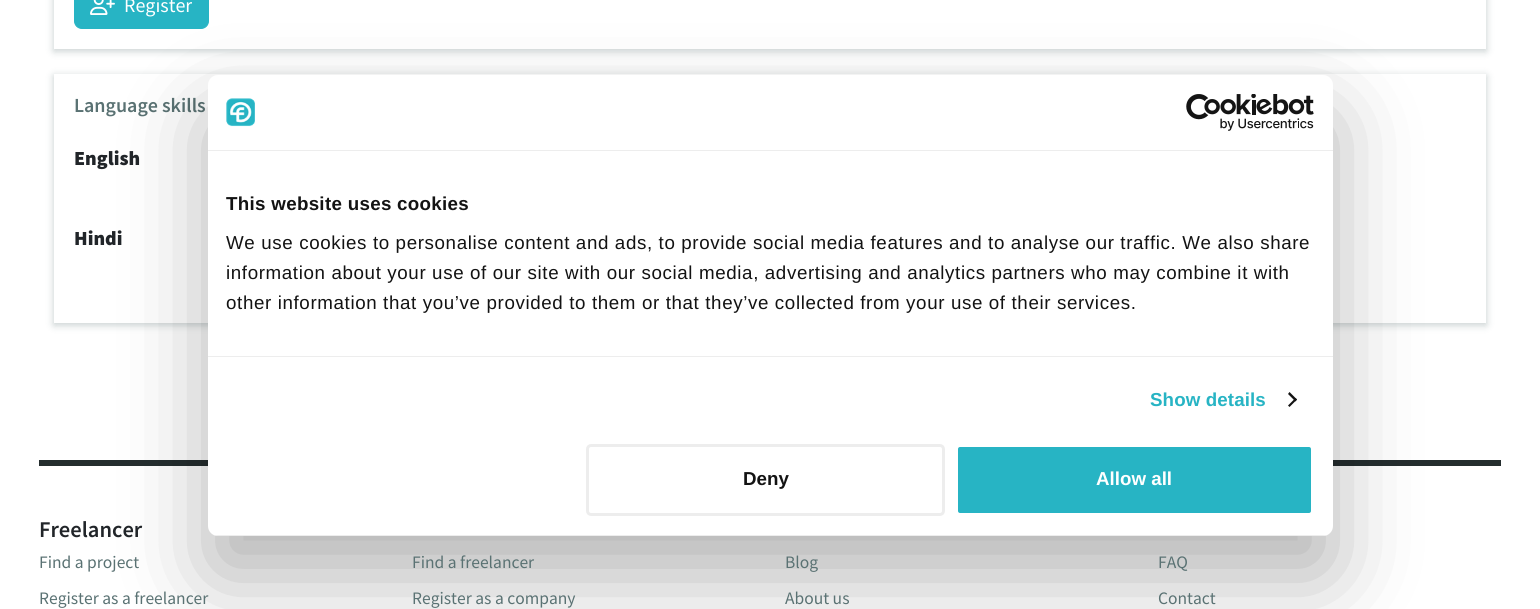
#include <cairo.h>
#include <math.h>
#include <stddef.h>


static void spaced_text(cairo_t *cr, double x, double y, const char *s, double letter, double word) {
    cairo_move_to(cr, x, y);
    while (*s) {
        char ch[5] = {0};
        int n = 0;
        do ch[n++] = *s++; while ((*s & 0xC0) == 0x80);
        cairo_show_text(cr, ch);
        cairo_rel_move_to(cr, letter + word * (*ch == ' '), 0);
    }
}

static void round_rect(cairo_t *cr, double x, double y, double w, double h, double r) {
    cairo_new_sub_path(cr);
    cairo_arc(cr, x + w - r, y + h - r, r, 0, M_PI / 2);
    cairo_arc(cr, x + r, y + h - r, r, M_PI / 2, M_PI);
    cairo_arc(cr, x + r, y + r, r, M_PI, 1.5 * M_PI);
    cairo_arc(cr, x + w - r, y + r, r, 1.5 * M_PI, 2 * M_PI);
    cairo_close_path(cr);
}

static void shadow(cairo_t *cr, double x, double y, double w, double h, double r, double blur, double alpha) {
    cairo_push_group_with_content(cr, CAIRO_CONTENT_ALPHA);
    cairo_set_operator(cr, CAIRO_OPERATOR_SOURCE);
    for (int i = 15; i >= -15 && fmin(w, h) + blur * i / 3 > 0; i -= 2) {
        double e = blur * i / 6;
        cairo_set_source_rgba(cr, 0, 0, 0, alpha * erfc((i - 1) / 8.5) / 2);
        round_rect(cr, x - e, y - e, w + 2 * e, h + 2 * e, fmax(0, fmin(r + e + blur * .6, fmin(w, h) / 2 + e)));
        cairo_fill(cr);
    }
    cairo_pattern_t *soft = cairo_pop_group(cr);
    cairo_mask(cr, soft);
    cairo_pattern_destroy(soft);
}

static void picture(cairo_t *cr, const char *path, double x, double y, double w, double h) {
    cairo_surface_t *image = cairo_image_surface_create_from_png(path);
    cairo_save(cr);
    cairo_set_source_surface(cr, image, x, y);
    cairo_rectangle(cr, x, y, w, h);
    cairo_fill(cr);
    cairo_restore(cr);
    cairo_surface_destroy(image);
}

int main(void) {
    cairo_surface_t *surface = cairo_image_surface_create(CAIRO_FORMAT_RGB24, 1540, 609);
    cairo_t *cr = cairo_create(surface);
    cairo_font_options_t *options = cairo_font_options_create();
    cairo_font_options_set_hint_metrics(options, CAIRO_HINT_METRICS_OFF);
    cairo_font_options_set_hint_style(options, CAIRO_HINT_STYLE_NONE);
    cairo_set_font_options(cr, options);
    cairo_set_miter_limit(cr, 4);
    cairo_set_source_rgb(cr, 1, 1, 1);
    cairo_paint(cr);
    cairo_set_source_rgb(cr, 0.353, 0.447, 0.451);
    shadow(cr, 54, -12, 1432, 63, 0, 4, 0.35);
    cairo_set_source_rgb(cr, 1, 1, 1);
    cairo_rectangle(cr, 54, 0, 1432, 49);
    cairo_fill(cr);
    cairo_set_source_rgb(cr, 0.153, 0.706, 0.769);
    round_rect(cr, 74.5, -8.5, 134, 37, 7.5);
    cairo_fill_preserve(cr);
    cairo_set_line_width(cr, 1);
    cairo_stroke(cr);
    picture(cr, "img1.png", 90, 0, 25, 15);
    cairo_select_font_face(cr, "Source Sans Pro", CAIRO_FONT_SLANT_NORMAL, CAIRO_FONT_WEIGHT_NORMAL);
    cairo_set_font_size(cr, 20);
    cairo_set_source_rgb(cr, 1, 1, 1);
    cairo_move_to(cr, 124, 12);
    cairo_show_text(cr, "Register");
    cairo_set_source_rgb(cr, 0.353, 0.447, 0.451);
    shadow(cr, 54, 76, 1432, 249, 0, 4, 0.35);
    cairo_set_source_rgb(cr, 1, 1, 1);
    cairo_rectangle(cr, 54, 74, 1432, 249);
    cairo_fill(cr);
    cairo_select_font_face(cr, "Source Sans Pro SemiBold", CAIRO_FONT_SLANT_NORMAL, CAIRO_FONT_WEIGHT_NORMAL);
    cairo_set_source_rgb(cr, 0.353, 0.447, 0.451);
    cairo_move_to(cr, 74, 112);
    cairo_show_text(cr, "Language skills");
    cairo_select_font_face(cr, "Source Sans Pro Black", CAIRO_FONT_SLANT_NORMAL, CAIRO_FONT_WEIGHT_NORMAL);
    cairo_set_source_rgb(cr, 0.129, 0.145, 0.161);
    cairo_move_to(cr, 74, 165);
    cairo_show_text(cr, "English");
    cairo_move_to(cr, 74, 245);
    cairo_show_text(cr, "Hindi");
    cairo_set_source_rgb(cr, 0.141, 0.176, 0.18);
    cairo_rectangle(cr, 39, 460, 1462, 6);
    cairo_fill(cr);
    cairo_set_source_rgb(cr, 0, 0, 0);
    shadow(cr, 208, 115, 1125, 461, 10, 42.5, 0.3);
    cairo_set_source_rgb(cr, 1, 1, 1);
    round_rect(cr, 208, 75, 1125, 461, 10);
    cairo_fill(cr);
    cairo_set_source_rgb(cr, 0.929, 0.929, 0.929);
    cairo_rectangle(cr, 208, 150, 1125, 1);
    cairo_fill(cr);
    picture(cr, "img2.png", 226, 98, 29, 29);
    picture(cr, "img3.png", 1186, 94, 128, 37);
    cairo_rectangle(cr, 208, 356, 1125, 1);
    cairo_fill(cr);
    cairo_select_font_face(cr, "Liberation Sans", CAIRO_FONT_SLANT_NORMAL, CAIRO_FONT_WEIGHT_BOLD);
    cairo_set_font_size(cr, 18.75);
    cairo_set_source_rgb(cr, 0.078, 0.078, 0.078);
    spaced_text(cr, 226, 210, "This website uses cookies", 0.3, 0);
    cairo_select_font_face(cr, "Liberation Sans", CAIRO_FONT_SLANT_NORMAL, CAIRO_FONT_WEIGHT_NORMAL);
    spaced_text(cr, 226, 249, "We use cookies to personalise content and ads, to provide social media features and to analyse our traffic. We also share", 0.62, 0);
    spaced_text(cr, 226, 279, "information about your use of our site with our social media, advertising and analytics partners who may combine it with", 0.62, 0);
    spaced_text(cr, 226, 309, "other information that you’ve provided to them or that they’ve collected from your use of their services.", 0.62, 0);
    cairo_select_font_face(cr, "Liberation Sans", CAIRO_FONT_SLANT_NORMAL, CAIRO_FONT_WEIGHT_BOLD);
    cairo_set_source_rgb(cr, 0.153, 0.706, 0.769);
    spaced_text(cr, 1150, 406, "Show details", 0.1, 0);
    cairo_set_source_rgb(cr, 0.078, 0.078, 0.078);
    cairo_new_path(cr);
    cairo_move_to(cr, 1289.5, 392);
    cairo_line_to(cr, 1297, 399.5);
    cairo_line_to(cr, 1295.5, 401.5);
    cairo_line_to(cr, 1288, 394);
    cairo_close_path(cr);
    cairo_fill(cr);
    cairo_new_path(cr);
    cairo_move_to(cr, 1295.5, 398);
    cairo_line_to(cr, 1297, 399.5);
    cairo_line_to(cr, 1289.5, 407);
    cairo_line_to(cr, 1288, 405.5);
    cairo_close_path(cr);
    cairo_fill(cr);
    cairo_save(cr);
    round_rect(cr, 208, 75, 1125, 461, 10);
    cairo_clip(cr);
    cairo_set_source_rgb(cr, 0.929, 0.929, 0.929);
    cairo_rectangle(cr, 208, 535, 1125, 1);
    cairo_fill(cr);
    cairo_restore(cr);
    round_rect(cr, 587.5, 445.5, 356, 69, 3.5);
    cairo_set_source_rgb(cr, 0.929, 0.929, 0.929);
    cairo_set_line_width(cr, 3);
    cairo_stroke(cr);
    cairo_set_source_rgb(cr, 0.078, 0.078, 0.078);
    cairo_move_to(cr, 743, 485);
    cairo_show_text(cr, "Deny");
    cairo_set_source_rgb(cr, 0.153, 0.706, 0.769);
    round_rect(cr, 956.5, 445.5, 356, 69, 3.5);
    cairo_fill_preserve(cr);
    cairo_set_source_rgb(cr, 1, 1, 1);
    cairo_stroke(cr);
    cairo_move_to(cr, 1096, 485);
    cairo_show_text(cr, "Allow all");
    cairo_select_font_face(cr, "Source Sans Pro SemiBold", CAIRO_FONT_SLANT_NORMAL, CAIRO_FONT_WEIGHT_NORMAL);
    cairo_set_font_size(cr, 22.5);
    cairo_set_source_rgb(cr, 0.129, 0.145, 0.161);
    cairo_move_to(cr, 39, 537);
    cairo_show_text(cr, "Freelancer");
    cairo_select_font_face(cr, "Source Sans Pro", CAIRO_FONT_SLANT_NORMAL, CAIRO_FONT_WEIGHT_NORMAL);
    cairo_set_font_size(cr, 17.5);
    cairo_set_source_rgb(cr, 0.353, 0.447, 0.451);
    cairo_move_to(cr, 39, 568);
    cairo_show_text(cr, "Find a project");
    cairo_move_to(cr, 39, 604);
    cairo_show_text(cr, "Register as a freelancer");
    cairo_move_to(cr, 412, 568);
    cairo_show_text(cr, "Find a freelancer");
    cairo_move_to(cr, 412, 604);
    cairo_show_text(cr, "Register as a company");
    cairo_move_to(cr, 785, 568);
    cairo_show_text(cr, "Blog");
    cairo_move_to(cr, 785, 604);
    cairo_show_text(cr, "About us");
    cairo_move_to(cr, 1158, 568);
    cairo_show_text(cr, "FAQ");
    cairo_move_to(cr, 1158, 604);
    cairo_show_text(cr, "Contact");
    cairo_surface_write_to_png(surface, "page.png");
    cairo_font_options_destroy(options);
    cairo_destroy(cr);
    cairo_surface_destroy(surface);
    return 0;
}
